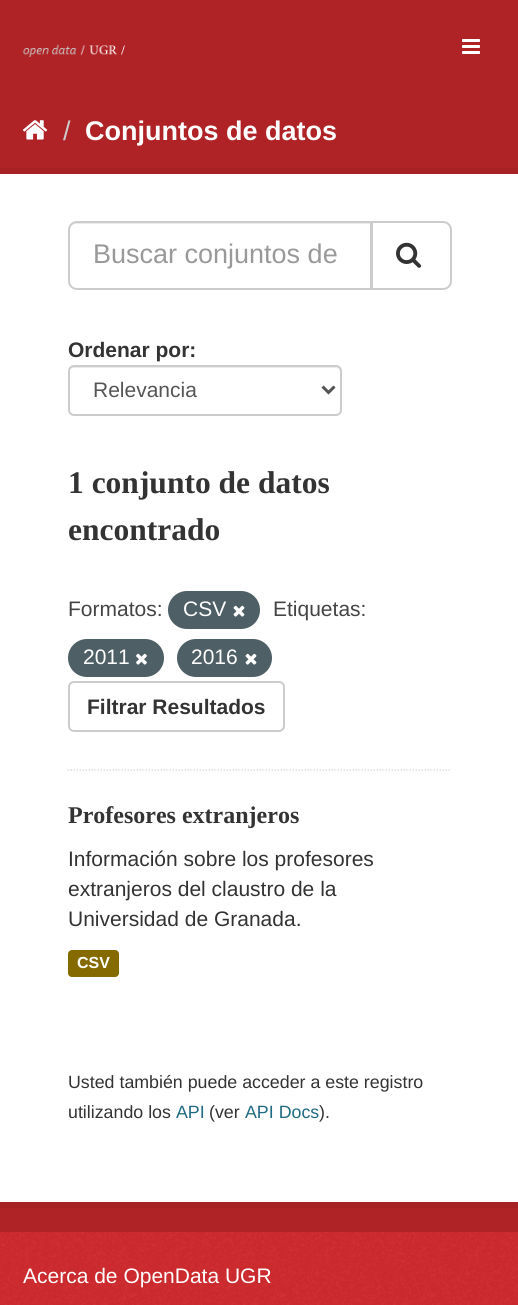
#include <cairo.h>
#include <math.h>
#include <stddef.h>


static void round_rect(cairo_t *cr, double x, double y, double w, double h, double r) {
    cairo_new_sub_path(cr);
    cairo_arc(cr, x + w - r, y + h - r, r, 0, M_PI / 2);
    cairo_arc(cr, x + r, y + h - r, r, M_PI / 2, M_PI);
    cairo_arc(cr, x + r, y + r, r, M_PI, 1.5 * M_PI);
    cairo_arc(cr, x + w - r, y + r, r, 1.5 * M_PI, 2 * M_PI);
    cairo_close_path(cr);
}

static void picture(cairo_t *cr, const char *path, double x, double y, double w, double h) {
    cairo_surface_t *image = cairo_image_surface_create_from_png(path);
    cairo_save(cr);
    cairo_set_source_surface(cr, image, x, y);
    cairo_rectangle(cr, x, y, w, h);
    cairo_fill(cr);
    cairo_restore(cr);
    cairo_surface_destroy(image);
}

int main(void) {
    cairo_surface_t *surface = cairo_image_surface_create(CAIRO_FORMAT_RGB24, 518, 1305);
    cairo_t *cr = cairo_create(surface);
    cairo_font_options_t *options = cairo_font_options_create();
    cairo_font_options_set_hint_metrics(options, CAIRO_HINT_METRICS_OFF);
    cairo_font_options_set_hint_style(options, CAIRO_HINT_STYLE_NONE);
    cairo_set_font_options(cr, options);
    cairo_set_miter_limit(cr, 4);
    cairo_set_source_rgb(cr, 0.82, 0.169, 0.18);
    cairo_paint(cr);
    cairo_set_source_rgb(cr, 0.686, 0.137, 0.149);
    cairo_rectangle(cr, 0, 0, 518, 1232);
    cairo_fill(cr);
    picture(cr, "img1.png", 23, 44, 102, 13);
    picture(cr, "img2.png", 462, 39, 18, 15);
    picture(cr, "img3.png", 23, 120, 25, 20);
    cairo_select_font_face(cr, "Liberation Sans", CAIRO_FONT_SLANT_NORMAL, CAIRO_FONT_WEIGHT_NORMAL);
    cairo_set_font_size(cr, 27);
    cairo_set_source_rgb(cr, 0.8, 0.8, 0.8);
    cairo_move_to(cr, 63, 140);
    cairo_show_text(cr, "/");
    cairo_select_font_face(cr, "Liberation Sans", CAIRO_FONT_SLANT_NORMAL, CAIRO_FONT_WEIGHT_BOLD);
    cairo_set_source_rgb(cr, 1, 1, 1);
    cairo_move_to(cr, 85, 140);
    cairo_show_text(cr, "Conjuntos de datos");
    cairo_rectangle(cr, -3, 171, 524, 1034);
    cairo_set_source_rgb(cr, 0.651, 0.129, 0.141);
    cairo_set_line_width(cr, 6);
    cairo_stroke(cr);
    cairo_set_source_rgb(cr, 1, 1, 1);
    cairo_rectangle(cr, 0, 174, 518, 1028);
    cairo_fill(cr);
    cairo_new_path(cr);
    cairo_move_to(cr, 67.5, 770);
    cairo_line_to(cr, 451.5, 770);
    cairo_set_source_rgb(cr, 0.867, 0.867, 0.867);
    cairo_set_line_width(cr, 1.5);
    cairo_set_dash(cr, (double[]){1.5, 1.5}, 2, 0);
    cairo_stroke(cr);
    cairo_set_source_rgb(cr, 0.925, 0.925, 0.925);
    cairo_new_path(cr);
    cairo_move_to(cr, 76, 224);
    cairo_line_to(cr, 370, 224);
    cairo_line_to(cr, 370, 288);
    cairo_line_to(cr, 371, 288);
    cairo_line_to(cr, 371, 222);
    cairo_line_to(cr, 75, 222);
    cairo_curve_to(cr, 71, 223, 69, 227, 69, 231);
    cairo_curve_to(cr, 69, 227, 72, 224, 76, 224);
    cairo_close_path(cr);
    cairo_fill(cr);
    cairo_new_path(cr);
    cairo_move_to(cr, 77, 222);
    cairo_line_to(cr, 371, 222);
    cairo_line_to(cr, 371, 289);
    cairo_line_to(cr, 77, 289);
    cairo_curve_to(cr, 72.5, 289, 69, 285.5, 69, 281);
    cairo_line_to(cr, 69, 230);
    cairo_curve_to(cr, 69, 225.5, 72.5, 222, 77, 222);
    cairo_close_path(cr);
    cairo_set_source_rgb(cr, 0.8, 0.8, 0.8);
    cairo_set_line_width(cr, 2);
    cairo_set_dash(cr, NULL, 0, 0);
    cairo_stroke(cr);
    cairo_select_font_face(cr, "Liberation Sans", CAIRO_FONT_SLANT_NORMAL, CAIRO_FONT_WEIGHT_NORMAL);
    cairo_set_source_rgb(cr, 0.6, 0.6, 0.6);
    cairo_move_to(cr, 93, 263);
    cairo_show_text(cr, "Buscar conjuntos de");
    cairo_set_source_rgb(cr, 1, 1, 1);
    cairo_new_path(cr);
    cairo_move_to(cr, 372, 222);
    cairo_line_to(cr, 443, 222);
    cairo_curve_to(cr, 447.5, 222, 451, 225.5, 451, 230);
    cairo_line_to(cr, 451, 281);
    cairo_curve_to(cr, 451, 285.5, 447.5, 289, 443, 289);
    cairo_line_to(cr, 372, 289);
    cairo_close_path(cr);
    cairo_fill_preserve(cr);
    cairo_set_source_rgb(cr, 0.8, 0.8, 0.8);
    cairo_stroke(cr);
    picture(cr, "img4.png", 396, 242, 25, 26);
    cairo_select_font_face(cr, "Liberation Sans", CAIRO_FONT_SLANT_NORMAL, CAIRO_FONT_WEIGHT_BOLD);
    cairo_set_font_size(cr, 21);
    cairo_set_source_rgb(cr, 0.2, 0.2, 0.2);
    cairo_move_to(cr, 68, 357);
    cairo_show_text(cr, "Ordenar por:");
    cairo_set_source_rgb(cr, 0.925, 0.925, 0.925);
    cairo_new_path(cr);
    cairo_move_to(cr, 74, 368);
    cairo_line_to(cr, 336, 368);
    cairo_curve_to(cr, 338, 368, 340, 370, 340, 372);
    cairo_line_to(cr, 340, 412);
    cairo_curve_to(cr, 341, 411, 341, 410, 341, 409);
    cairo_line_to(cr, 341, 371);
    cairo_curve_to(cr, 341, 368, 339, 366, 336, 366);
    cairo_line_to(cr, 74, 366);
    cairo_curve_to(cr, 71, 366, 69, 368, 69, 371);
    cairo_line_to(cr, 69, 372);
    cairo_curve_to(cr, 69, 370, 71, 368, 74, 368);
    cairo_close_path(cr);
    cairo_fill(cr);
    round_rect(cr, 69, 366, 272, 49, 5);
    cairo_set_source_rgb(cr, 0.8, 0.8, 0.8);
    cairo_stroke(cr);
    cairo_new_path(cr);
    cairo_move_to(cr, 322.5, 386.5);
    cairo_line_to(cr, 328.5, 392.5);
    cairo_line_to(cr, 334.5, 386.5);
    cairo_set_source_rgb(cr, 0.333, 0.333, 0.333);
    cairo_set_line_width(cr, 3);
    cairo_stroke(cr);
    cairo_select_font_face(cr, "Liberation Sans", CAIRO_FONT_SLANT_NORMAL, CAIRO_FONT_WEIGHT_NORMAL);
    cairo_move_to(cr, 93, 397);
    cairo_show_text(cr, "Relevancia");
    cairo_select_font_face(cr, "Liberation Serif", CAIRO_FONT_SLANT_NORMAL, CAIRO_FONT_WEIGHT_BOLD);
    cairo_set_font_size(cr, 31.5);
    cairo_set_source_rgb(cr, 0.2, 0.2, 0.2);
    cairo_move_to(cr, 68, 493);
    cairo_show_text(cr, "1 conjunto de datos");
    cairo_move_to(cr, 68, 540);
    cairo_show_text(cr, "encontrado");
    cairo_select_font_face(cr, "Liberation Sans", CAIRO_FONT_SLANT_NORMAL, CAIRO_FONT_WEIGHT_NORMAL);
    cairo_set_font_size(cr, 21);
    cairo_set_source_rgb(cr, 0.267, 0.267, 0.267);
    cairo_move_to(cr, 68, 616);
    cairo_show_text(cr, "Formatos:");
    cairo_set_source_rgb(cr, 0.306, 0.373, 0.396);
    round_rect(cr, 168, 591, 92, 38, 19);
    cairo_fill(cr);
    cairo_set_source_rgb(cr, 1, 1, 1);
    cairo_move_to(cr, 183, 616);
    cairo_show_text(cr, "CSV");
    picture(cr, "img5.png", 233, 605, 12, 12);
    cairo_set_source_rgb(cr, 0.267, 0.267, 0.267);
    cairo_move_to(cr, 273, 616);
    cairo_show_text(cr, "Etiquetas:");
    cairo_set_source_rgb(cr, 0.306, 0.373, 0.396);
    round_rect(cr, 68, 639, 96, 38, 19);
    cairo_fill(cr);
    cairo_set_source_rgb(cr, 1, 1, 1);
    cairo_move_to(cr, 83, 664);
    cairo_show_text(cr, "2011");
    picture(cr, "img6.png", 136, 653, 11, 12);
    cairo_set_source_rgb(cr, 0.306, 0.373, 0.396);
    round_rect(cr, 177, 639, 95, 38, 19);
    cairo_fill(cr);
    cairo_set_source_rgb(cr, 1, 1, 1);
    cairo_move_to(cr, 191, 664);
    cairo_show_text(cr, "2016");
    picture(cr, "img5.png", 245, 653, 12, 12);
    round_rect(cr, 69, 682, 215, 49, 5);
    cairo_set_source_rgb(cr, 0.8, 0.8, 0.8);
    cairo_set_line_width(cr, 2);
    cairo_stroke(cr);
    cairo_select_font_face(cr, "Liberation Sans", CAIRO_FONT_SLANT_NORMAL, CAIRO_FONT_WEIGHT_BOLD);
    cairo_set_source_rgb(cr, 0.2, 0.2, 0.2);
    cairo_move_to(cr, 87, 714);
    cairo_show_text(cr, "Filtrar Resultados");
    cairo_select_font_face(cr, "Liberation Serif", CAIRO_FONT_SLANT_NORMAL, CAIRO_FONT_WEIGHT_BOLD);
    cairo_set_font_size(cr, 24);
    cairo_move_to(cr, 68, 823);
    cairo_show_text(cr, "Profesores extranjeros");
    cairo_select_font_face(cr, "Liberation Sans", CAIRO_FONT_SLANT_NORMAL, CAIRO_FONT_WEIGHT_NORMAL);
    cairo_set_font_size(cr, 21);
    cairo_move_to(cr, 68, 866);
    cairo_show_text(cr, "Información sobre los profesores");
    cairo_move_to(cr, 68, 896);
    cairo_show_text(cr, "extranjeros del claustro de la");
    cairo_move_to(cr, 68, 926);
    cairo_show_text(cr, "Universidad de Granada.");
    cairo_set_source_rgb(cr, 0.522, 0.416, 0);
    round_rect(cr, 68, 950, 51, 27, 4);
    cairo_fill(cr);
    cairo_select_font_face(cr, "Liberation Sans", CAIRO_FONT_SLANT_NORMAL, CAIRO_FONT_WEIGHT_BOLD);
    cairo_set_font_size(cr, 16);
    cairo_set_source_rgb(cr, 1, 1, 1);
    cairo_move_to(cr, 77, 968);
    cairo_show_text(cr, "CSV");
    cairo_select_font_face(cr, "Liberation Sans", CAIRO_FONT_SLANT_NORMAL, CAIRO_FONT_WEIGHT_NORMAL);
    cairo_set_font_size(cr, 17.8);
    cairo_set_source_rgb(cr, 0.2, 0.2, 0.2);
    cairo_move_to(cr, 68, 1088);
    cairo_show_text(cr, "Usted también puede acceder a este registro");
    cairo_move_to(cr, 68, 1118);
    cairo_show_text(cr, "utilizando los");
    cairo_set_source_rgb(cr, 0.125, 0.42, 0.51);
    cairo_move_to(cr, 176, 1118);
    cairo_show_text(cr, "API");
    cairo_set_source_rgb(cr, 0.2, 0.2, 0.2);
    cairo_move_to(cr, 209, 1118);
    cairo_show_text(cr, "(ver");
    cairo_set_source_rgb(cr, 0.125, 0.42, 0.51);
    cairo_move_to(cr, 245, 1118);
    cairo_show_text(cr, "API Docs");
    cairo_set_source_rgb(cr, 0.2, 0.2, 0.2);
    cairo_move_to(cr, 319, 1118);
    cairo_show_text(cr, ").");
    picture(cr, "img7.png", 0, 1232, 518, 73);
    cairo_set_font_size(cr, 21);
    cairo_set_source_rgb(cr, 1, 1, 1);
    cairo_move_to(cr, 23, 1283);
    cairo_show_text(cr, "Acerca de OpenData UGR");
    cairo_surface_write_to_png(surface, "page.png");
    cairo_font_options_destroy(options);
    cairo_destroy(cr);
    cairo_surface_destroy(surface);
    return 0;
}
